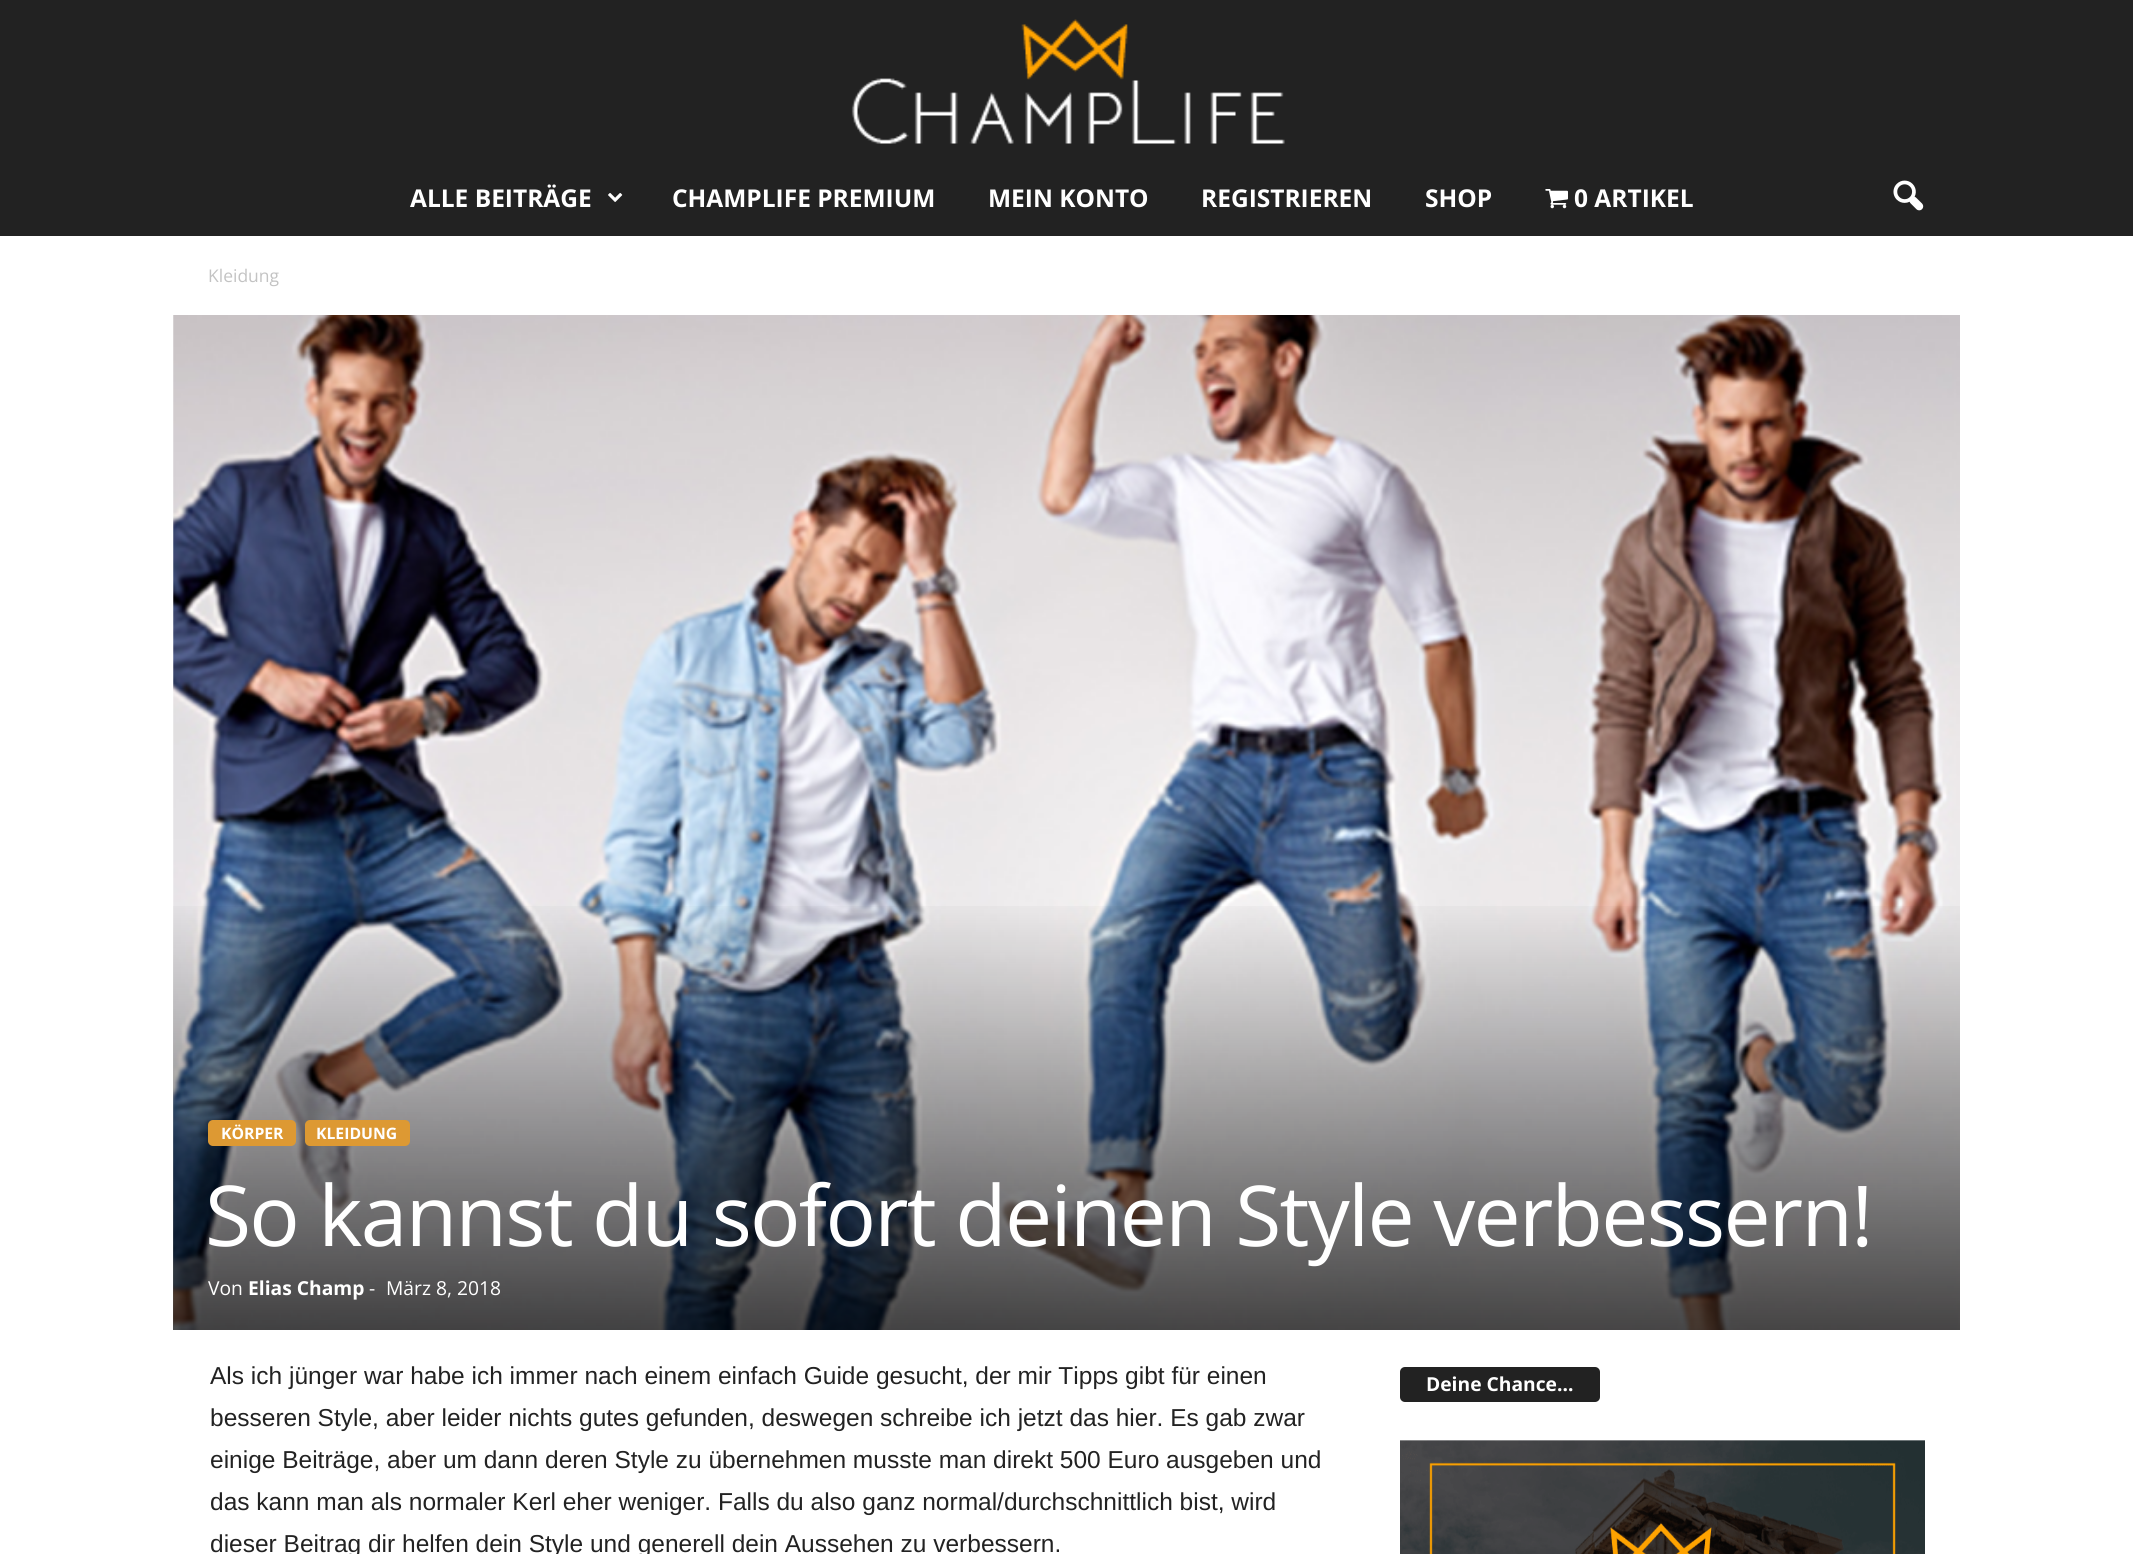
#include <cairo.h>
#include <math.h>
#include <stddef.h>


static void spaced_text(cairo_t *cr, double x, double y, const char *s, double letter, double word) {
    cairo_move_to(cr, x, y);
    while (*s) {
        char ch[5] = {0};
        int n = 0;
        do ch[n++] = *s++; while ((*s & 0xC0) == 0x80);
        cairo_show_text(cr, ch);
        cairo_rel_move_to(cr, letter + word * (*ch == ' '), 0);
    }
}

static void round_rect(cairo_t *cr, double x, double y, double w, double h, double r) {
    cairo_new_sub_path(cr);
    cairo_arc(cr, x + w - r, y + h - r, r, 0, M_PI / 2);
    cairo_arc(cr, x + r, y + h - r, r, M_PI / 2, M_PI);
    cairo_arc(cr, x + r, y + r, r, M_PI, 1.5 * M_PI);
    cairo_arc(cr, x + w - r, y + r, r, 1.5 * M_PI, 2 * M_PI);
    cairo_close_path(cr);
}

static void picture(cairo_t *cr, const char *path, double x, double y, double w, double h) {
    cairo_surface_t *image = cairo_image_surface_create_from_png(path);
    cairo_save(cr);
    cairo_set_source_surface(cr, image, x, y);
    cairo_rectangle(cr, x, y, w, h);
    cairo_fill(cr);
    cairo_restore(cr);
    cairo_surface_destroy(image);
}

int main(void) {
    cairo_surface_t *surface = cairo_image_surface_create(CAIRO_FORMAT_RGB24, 2133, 1554);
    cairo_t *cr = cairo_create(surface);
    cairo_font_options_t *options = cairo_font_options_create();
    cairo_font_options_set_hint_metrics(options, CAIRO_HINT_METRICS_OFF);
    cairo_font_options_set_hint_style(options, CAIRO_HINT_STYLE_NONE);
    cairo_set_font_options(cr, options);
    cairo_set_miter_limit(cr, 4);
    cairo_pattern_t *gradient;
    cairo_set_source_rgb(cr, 1, 1, 1);
    cairo_paint(cr);
    cairo_set_source_rgb(cr, 0.133, 0.133, 0.133);
    cairo_rectangle(cr, 0, 0, 2133, 236);
    cairo_fill(cr);
    picture(cr, "img1.png", 851, 19, 434, 125);
    cairo_select_font_face(cr, "Open Sans", CAIRO_FONT_SLANT_NORMAL, CAIRO_FONT_WEIGHT_BOLD);
    cairo_set_font_size(cr, 24.5);
    cairo_set_source_rgb(cr, 1, 1, 1);
    cairo_move_to(cr, 410, 207);
    cairo_show_text(cr, "ALLE BEITRÄGE");
    picture(cr, "img2.png", 608, 193, 15, 9);
    cairo_move_to(cr, 672, 207);
    cairo_show_text(cr, "CHAMPLIFE PREMIUM");
    cairo_move_to(cr, 988, 207);
    cairo_show_text(cr, "MEIN KONTO");
    cairo_move_to(cr, 1201, 207);
    cairo_show_text(cr, "REGISTRIEREN");
    cairo_move_to(cr, 1425, 207);
    cairo_show_text(cr, "SHOP");
    picture(cr, "img3.png", 1545, 189, 23, 20);
    cairo_move_to(cr, 1574, 207);
    cairo_show_text(cr, "0 ARTIKEL");
    picture(cr, "img4.png", 1893, 180, 31, 31);
    cairo_select_font_face(cr, "Open Sans", CAIRO_FONT_SLANT_NORMAL, CAIRO_FONT_WEIGHT_NORMAL);
    cairo_set_font_size(cr, 17.5);
    cairo_set_source_rgb(cr, 0.765, 0.765, 0.765);
    cairo_move_to(cr, 208, 282);
    cairo_show_text(cr, "Kleidung");
    picture(cr, "img5.png", 173, 315, 1787, 1015);
    gradient = cairo_pattern_create_linear(1067, 892, 1067, 1330);
    cairo_pattern_add_color_stop_rgba(gradient, 0, 0, 0, 0, 0);
    cairo_pattern_add_color_stop_rgba(gradient, 1, 0, 0, 0, 0.7);
    cairo_set_source(cr, gradient);
    cairo_pattern_destroy(gradient);
    cairo_rectangle(cr, 173, 906, 1787, 424);
    cairo_fill(cr);
    cairo_set_source_rgb(cr, 0.867, 0.6, 0.2);
    round_rect(cr, 208, 1120, 88, 26, 5);
    cairo_fill(cr);
    cairo_select_font_face(cr, "Open Sans", CAIRO_FONT_SLANT_NORMAL, CAIRO_FONT_WEIGHT_BOLD);
    cairo_set_font_size(cr, 15.75);
    cairo_set_source_rgb(cr, 1, 1, 1);
    cairo_move_to(cr, 221, 1139);
    cairo_show_text(cr, "KÖRPER");
    cairo_set_source_rgb(cr, 0.867, 0.6, 0.2);
    round_rect(cr, 305, 1120, 105, 26, 5);
    cairo_fill(cr);
    cairo_set_source_rgb(cr, 1, 1, 1);
    cairo_move_to(cr, 316, 1139);
    cairo_show_text(cr, "KLEIDUNG");
    cairo_select_font_face(cr, "Open Sans", CAIRO_FONT_SLANT_NORMAL, CAIRO_FONT_WEIGHT_NORMAL);
    cairo_set_font_size(cr, 84);
    spaced_text(cr, 205, 1246, "So kannst du sofort deinen Style verbessern!", -1.7, 0);
    cairo_set_font_size(cr, 19.25);
    cairo_move_to(cr, 208, 1295);
    cairo_show_text(cr, "Von");
    cairo_select_font_face(cr, "Open Sans", CAIRO_FONT_SLANT_NORMAL, CAIRO_FONT_WEIGHT_BOLD);
    cairo_move_to(cr, 248, 1295);
    cairo_show_text(cr, "Elias Champ");
    cairo_select_font_face(cr, "Open Sans", CAIRO_FONT_SLANT_NORMAL, CAIRO_FONT_WEIGHT_NORMAL);
    cairo_move_to(cr, 369, 1295);
    cairo_show_text(cr, "-");
    cairo_move_to(cr, 386, 1295);
    cairo_show_text(cr, "März 8, 2018");
    cairo_select_font_face(cr, "Liberation Sans", CAIRO_FONT_SLANT_NORMAL, CAIRO_FONT_WEIGHT_NORMAL);
    cairo_set_font_size(cr, 24.5);
    cairo_set_source_rgb(cr, 0.133, 0.133, 0.133);
    cairo_move_to(cr, 210, 1384);
    cairo_show_text(cr, "Als ich jünger war habe ich immer nach einem einfach Guide gesucht, der mir Tipps gibt für einen");
    cairo_move_to(cr, 210, 1426);
    cairo_show_text(cr, "besseren Style, aber leider nichts gutes gefunden, deswegen schreibe ich jetzt das hier. Es gab zwar");
    cairo_move_to(cr, 210, 1468);
    cairo_show_text(cr, "einige Beiträge, aber um dann deren Style zu übernehmen musste man direkt 500 Euro ausgeben und");
    cairo_move_to(cr, 210, 1510);
    cairo_show_text(cr, "das kann man als normaler Kerl eher weniger. Falls du also ganz normal/durchschnittlich bist, wird");
    cairo_move_to(cr, 210, 1552);
    cairo_show_text(cr, "dieser Beitrag dir helfen dein Style und generell dein Aussehen zu verbessern.");
    round_rect(cr, 1400, 1367, 200, 35, 5);
    cairo_fill(cr);
    cairo_select_font_face(cr, "Open Sans", CAIRO_FONT_SLANT_NORMAL, CAIRO_FONT_WEIGHT_BOLD);
    cairo_set_font_size(cr, 19.25);
    cairo_set_source_rgb(cr, 1, 1, 1);
    cairo_move_to(cr, 1426, 1391);
    cairo_show_text(cr, "Deine Chance…");
    picture(cr, "img6.png", 1400, 1440, 525, 114);
    cairo_surface_write_to_png(surface, "page.png");
    cairo_font_options_destroy(options);
    cairo_destroy(cr);
    cairo_surface_destroy(surface);
    return 0;
}
